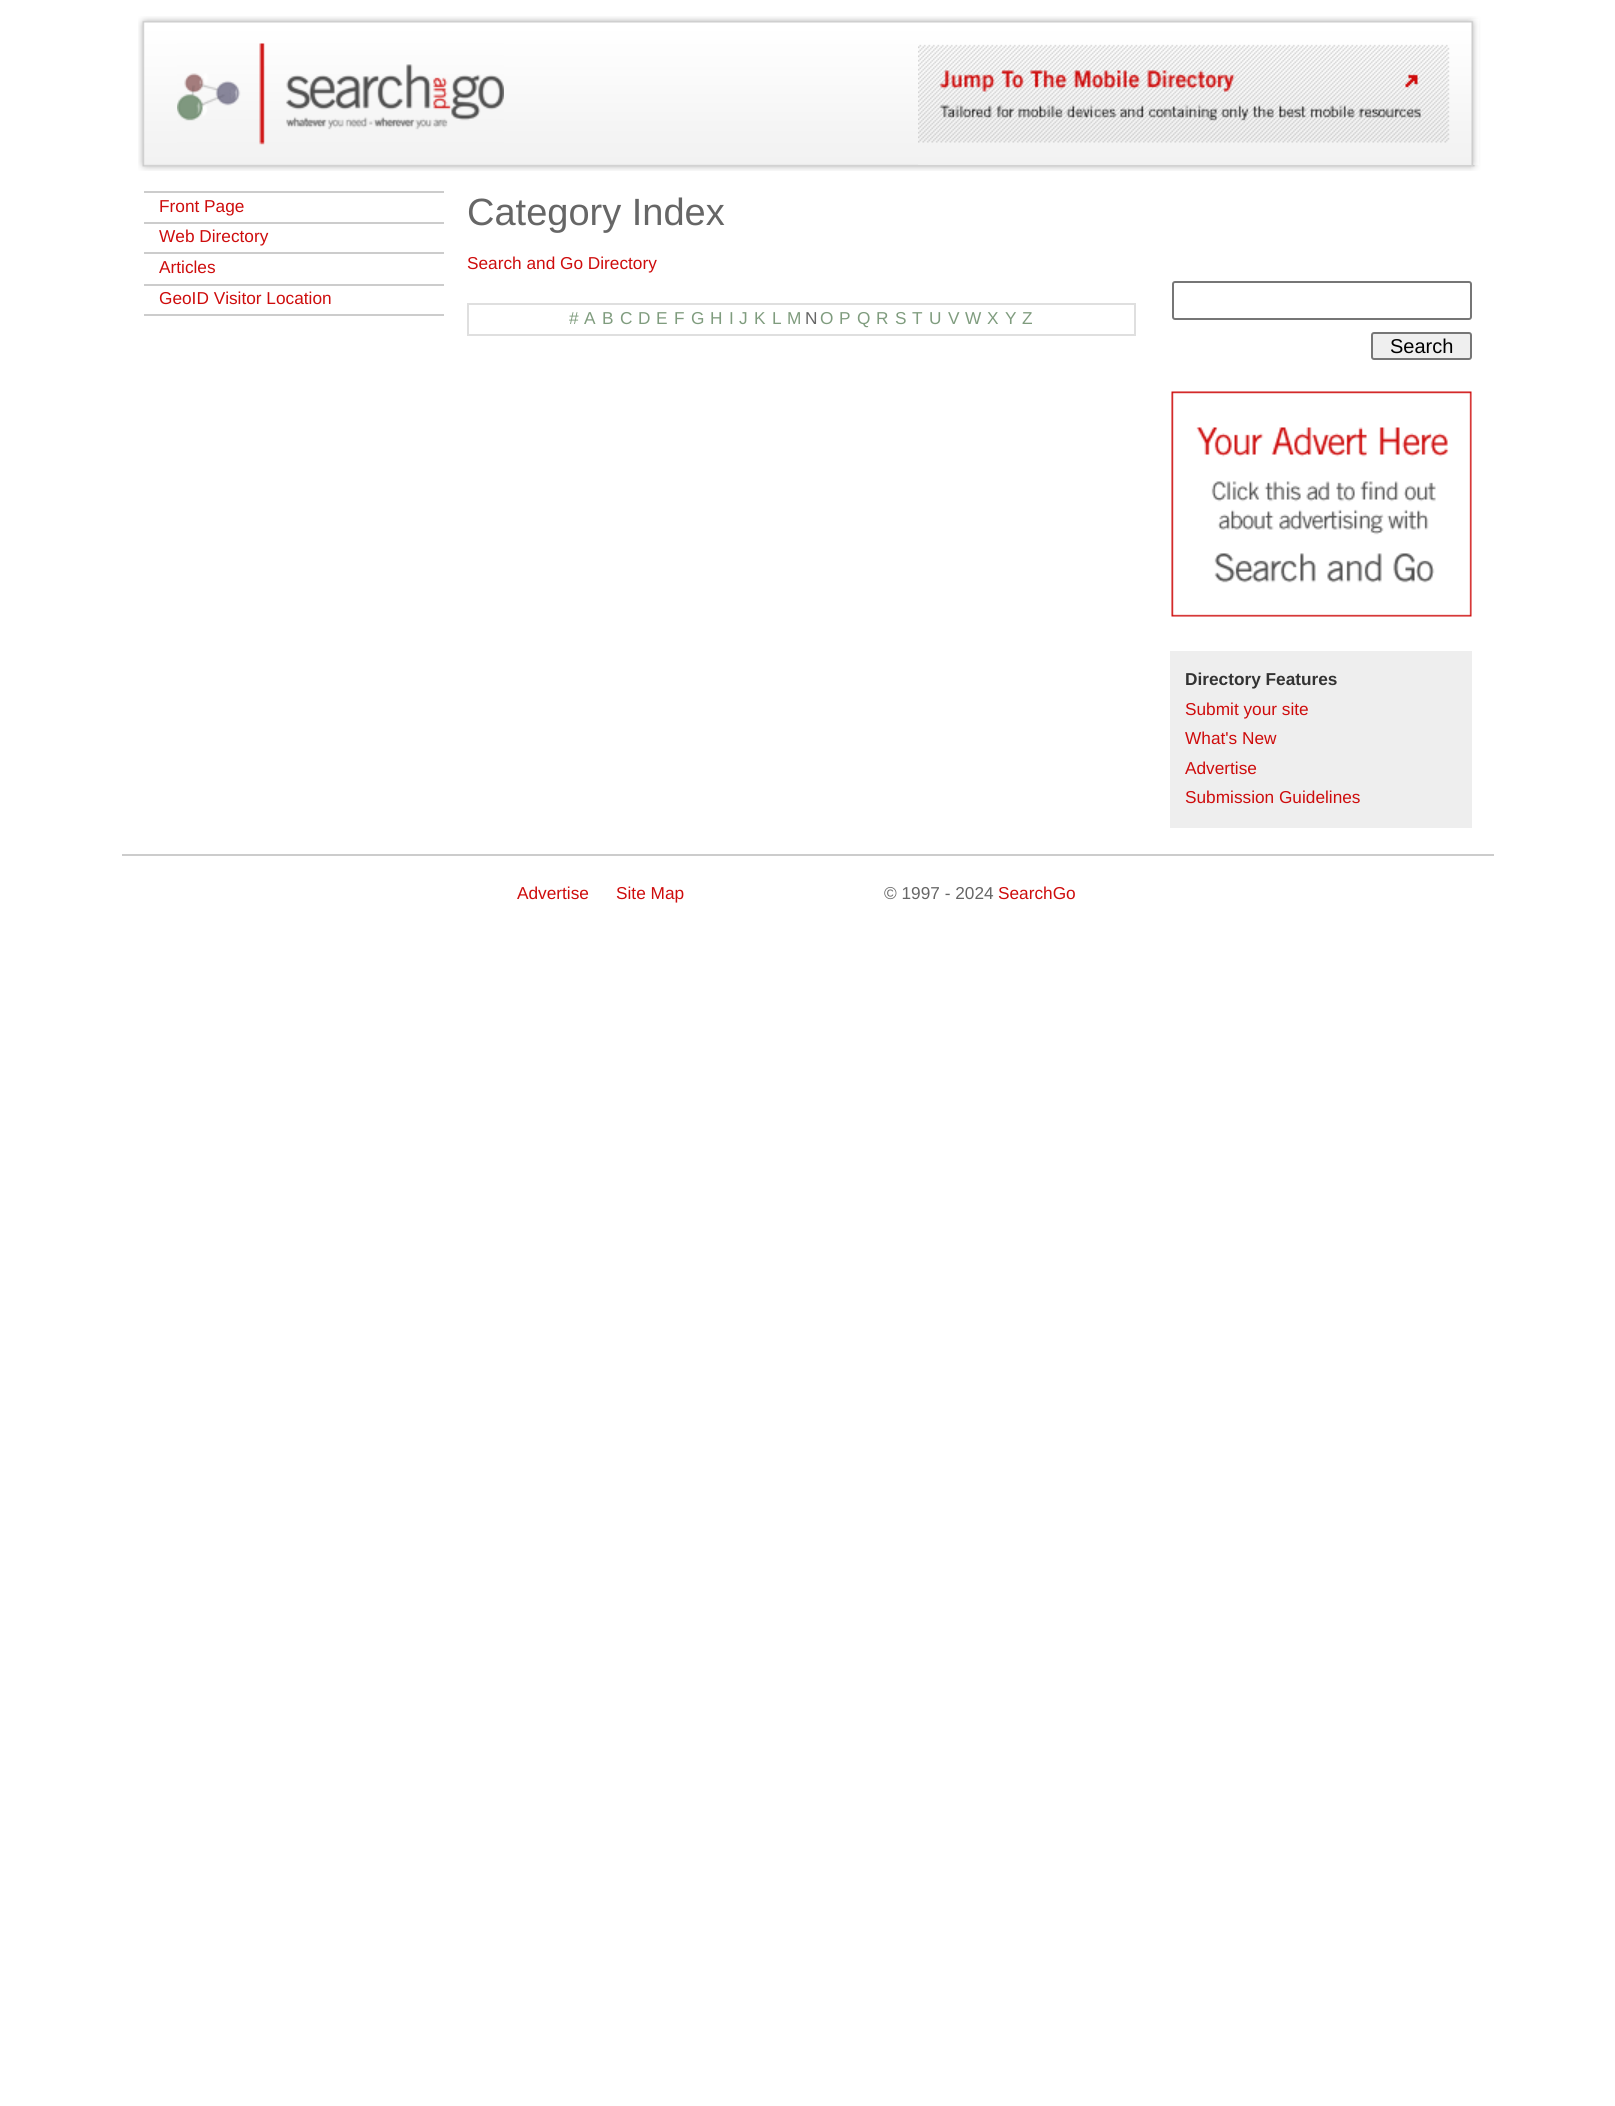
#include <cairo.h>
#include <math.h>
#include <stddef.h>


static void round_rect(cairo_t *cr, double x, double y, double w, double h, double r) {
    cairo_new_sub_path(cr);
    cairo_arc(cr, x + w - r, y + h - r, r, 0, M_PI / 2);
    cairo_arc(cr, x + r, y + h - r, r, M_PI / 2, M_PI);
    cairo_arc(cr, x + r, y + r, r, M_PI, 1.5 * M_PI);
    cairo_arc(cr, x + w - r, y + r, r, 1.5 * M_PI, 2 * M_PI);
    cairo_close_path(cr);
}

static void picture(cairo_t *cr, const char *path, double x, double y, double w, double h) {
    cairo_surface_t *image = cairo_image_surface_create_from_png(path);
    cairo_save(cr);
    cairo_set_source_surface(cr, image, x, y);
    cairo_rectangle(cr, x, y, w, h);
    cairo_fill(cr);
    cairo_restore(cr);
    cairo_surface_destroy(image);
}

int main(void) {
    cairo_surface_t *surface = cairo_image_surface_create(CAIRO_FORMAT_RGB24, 1615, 2106);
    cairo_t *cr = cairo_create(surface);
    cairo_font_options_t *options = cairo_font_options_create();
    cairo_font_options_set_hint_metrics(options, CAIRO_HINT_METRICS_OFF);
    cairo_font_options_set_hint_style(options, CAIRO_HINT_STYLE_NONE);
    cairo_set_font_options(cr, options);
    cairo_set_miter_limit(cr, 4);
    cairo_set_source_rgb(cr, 1, 1, 1);
    cairo_paint(cr);
    picture(cr, "img1.png", 138, 16, 1333, 155);
    picture(cr, "img2.png", 177, 43, 327, 102);
    picture(cr, "img4.png", 1471, 16, 23, 155);
    picture(cr, "img3.png", 918, 19, 561, 146);
    cairo_set_source_rgb(cr, 0.8, 0.8, 0.8);
    cairo_rectangle(cr, 144, 191, 300, 2);
    cairo_fill(cr);
    cairo_rectangle(cr, 144, 222, 300, 2);
    cairo_fill(cr);
    cairo_select_font_face(cr, "Liberation Sans", CAIRO_FONT_SLANT_NORMAL, CAIRO_FONT_WEIGHT_NORMAL);
    cairo_set_font_size(cr, 17.25);
    cairo_set_source_rgb(cr, 0.808, 0.047, 0.047);
    cairo_move_to(cr, 159, 212);
    cairo_show_text(cr, "Front Page");
    cairo_set_source_rgb(cr, 0.8, 0.8, 0.8);
    cairo_rectangle(cr, 144, 252, 300, 2);
    cairo_fill(cr);
    cairo_set_source_rgb(cr, 0.808, 0.047, 0.047);
    cairo_move_to(cr, 159, 242);
    cairo_show_text(cr, "Web Directory");
    cairo_set_source_rgb(cr, 0.8, 0.8, 0.8);
    cairo_rectangle(cr, 144, 284, 300, 2);
    cairo_fill(cr);
    cairo_set_source_rgb(cr, 0.808, 0.047, 0.047);
    cairo_move_to(cr, 159, 273);
    cairo_show_text(cr, "Articles");
    cairo_set_source_rgb(cr, 0.8, 0.8, 0.8);
    cairo_rectangle(cr, 144, 314, 300, 2);
    cairo_fill(cr);
    cairo_set_source_rgb(cr, 0.808, 0.047, 0.047);
    cairo_move_to(cr, 159, 304);
    cairo_show_text(cr, "GeoID Visitor Location");
    cairo_set_font_size(cr, 38);
    cairo_set_source_rgb(cr, 0.4, 0.4, 0.4);
    cairo_move_to(cr, 467, 225);
    cairo_show_text(cr, "Category Index");
    cairo_set_font_size(cr, 17.25);
    cairo_set_source_rgb(cr, 0.808, 0.047, 0.047);
    cairo_move_to(cr, 467, 269);
    cairo_show_text(cr, "Search and Go Directory");
    cairo_rectangle(cr, 468, 304, 667, 31);
    cairo_set_source_rgb(cr, 0.875, 0.875, 0.875);
    cairo_stroke(cr);
    cairo_set_source_rgb(cr, 0.498, 0.612, 0.494);
    cairo_move_to(cr, 569, 324);
    cairo_show_text(cr, "#");
    cairo_move_to(cr, 584, 324);
    cairo_show_text(cr, "A");
    cairo_move_to(cr, 602, 324);
    cairo_show_text(cr, "B");
    cairo_move_to(cr, 620, 324);
    cairo_show_text(cr, "C");
    cairo_move_to(cr, 638, 324);
    cairo_show_text(cr, "D");
    cairo_move_to(cr, 656, 324);
    cairo_show_text(cr, "E");
    cairo_move_to(cr, 674, 324);
    cairo_show_text(cr, "F");
    cairo_move_to(cr, 691, 324);
    cairo_show_text(cr, "G");
    cairo_move_to(cr, 710, 324);
    cairo_show_text(cr, "H");
    cairo_move_to(cr, 729, 324);
    cairo_show_text(cr, "I");
    cairo_move_to(cr, 739, 324);
    cairo_show_text(cr, "J");
    cairo_move_to(cr, 754, 324);
    cairo_show_text(cr, "K");
    cairo_move_to(cr, 772, 324);
    cairo_show_text(cr, "L");
    cairo_move_to(cr, 787, 324);
    cairo_show_text(cr, "M");
    cairo_set_source_rgb(cr, 0.4, 0.4, 0.4);
    cairo_move_to(cr, 805, 324);
    cairo_show_text(cr, "N");
    cairo_set_source_rgb(cr, 0.498, 0.612, 0.494);
    cairo_move_to(cr, 820, 324);
    cairo_show_text(cr, "O");
    cairo_move_to(cr, 839, 324);
    cairo_show_text(cr, "P");
    cairo_move_to(cr, 857, 324);
    cairo_show_text(cr, "Q");
    cairo_move_to(cr, 876, 324);
    cairo_show_text(cr, "R");
    cairo_move_to(cr, 895, 324);
    cairo_show_text(cr, "S");
    cairo_move_to(cr, 912, 324);
    cairo_show_text(cr, "T");
    cairo_move_to(cr, 929, 324);
    cairo_show_text(cr, "U");
    cairo_move_to(cr, 948, 324);
    cairo_show_text(cr, "V");
    cairo_move_to(cr, 965, 324);
    cairo_show_text(cr, "W");
    cairo_move_to(cr, 987, 324);
    cairo_show_text(cr, "X");
    cairo_move_to(cr, 1005, 324);
    cairo_show_text(cr, "Y");
    cairo_move_to(cr, 1022, 324);
    cairo_show_text(cr, "Z");
    round_rect(cr, 1173, 282, 298, 37, 2);
    cairo_set_source_rgb(cr, 0.463, 0.463, 0.463);
    cairo_stroke(cr);
    cairo_set_source_rgb(cr, 0.937, 0.937, 0.937);
    round_rect(cr, 1372, 333, 99, 26, 2);
    cairo_fill_preserve(cr);
    cairo_set_source_rgb(cr, 0.463, 0.463, 0.463);
    cairo_stroke(cr);
    cairo_set_font_size(cr, 20);
    cairo_set_source_rgb(cr, 0, 0, 0);
    cairo_move_to(cr, 1390, 353);
    cairo_show_text(cr, "Search");
    picture(cr, "img5.png", 1171, 391, 301, 226);
    cairo_set_source_rgb(cr, 0.933, 0.933, 0.933);
    cairo_rectangle(cr, 1170, 651, 302, 177);
    cairo_fill(cr);
    cairo_select_font_face(cr, "Liberation Sans", CAIRO_FONT_SLANT_NORMAL, CAIRO_FONT_WEIGHT_BOLD);
    cairo_set_font_size(cr, 17.25);
    cairo_set_source_rgb(cr, 0.2, 0.2, 0.2);
    cairo_move_to(cr, 1185, 685);
    cairo_show_text(cr, "Directory Features");
    cairo_select_font_face(cr, "Liberation Sans", CAIRO_FONT_SLANT_NORMAL, CAIRO_FONT_WEIGHT_NORMAL);
    cairo_set_source_rgb(cr, 0.808, 0.047, 0.047);
    cairo_move_to(cr, 1185, 715);
    cairo_show_text(cr, "Submit your site");
    cairo_move_to(cr, 1185, 744);
    cairo_show_text(cr, "What's New");
    cairo_move_to(cr, 1185, 774);
    cairo_show_text(cr, "Advertise");
    cairo_move_to(cr, 1185, 803);
    cairo_show_text(cr, "Submission Guidelines");
    cairo_set_source_rgb(cr, 0.8, 0.8, 0.8);
    cairo_rectangle(cr, 122, 854, 1372, 2);
    cairo_fill(cr);
    cairo_set_source_rgb(cr, 0.808, 0.047, 0.047);
    cairo_move_to(cr, 517, 899);
    cairo_show_text(cr, "Advertise");
    cairo_move_to(cr, 616, 899);
    cairo_show_text(cr, "Site Map");
    cairo_set_source_rgb(cr, 0.4, 0.4, 0.4);
    cairo_move_to(cr, 884, 899);
    cairo_show_text(cr, "© 1997 - 2024");
    cairo_set_source_rgb(cr, 0.808, 0.047, 0.047);
    cairo_move_to(cr, 998, 899);
    cairo_show_text(cr, "SearchGo");
    cairo_surface_write_to_png(surface, "page.png");
    cairo_font_options_destroy(options);
    cairo_destroy(cr);
    cairo_surface_destroy(surface);
    return 0;
}
